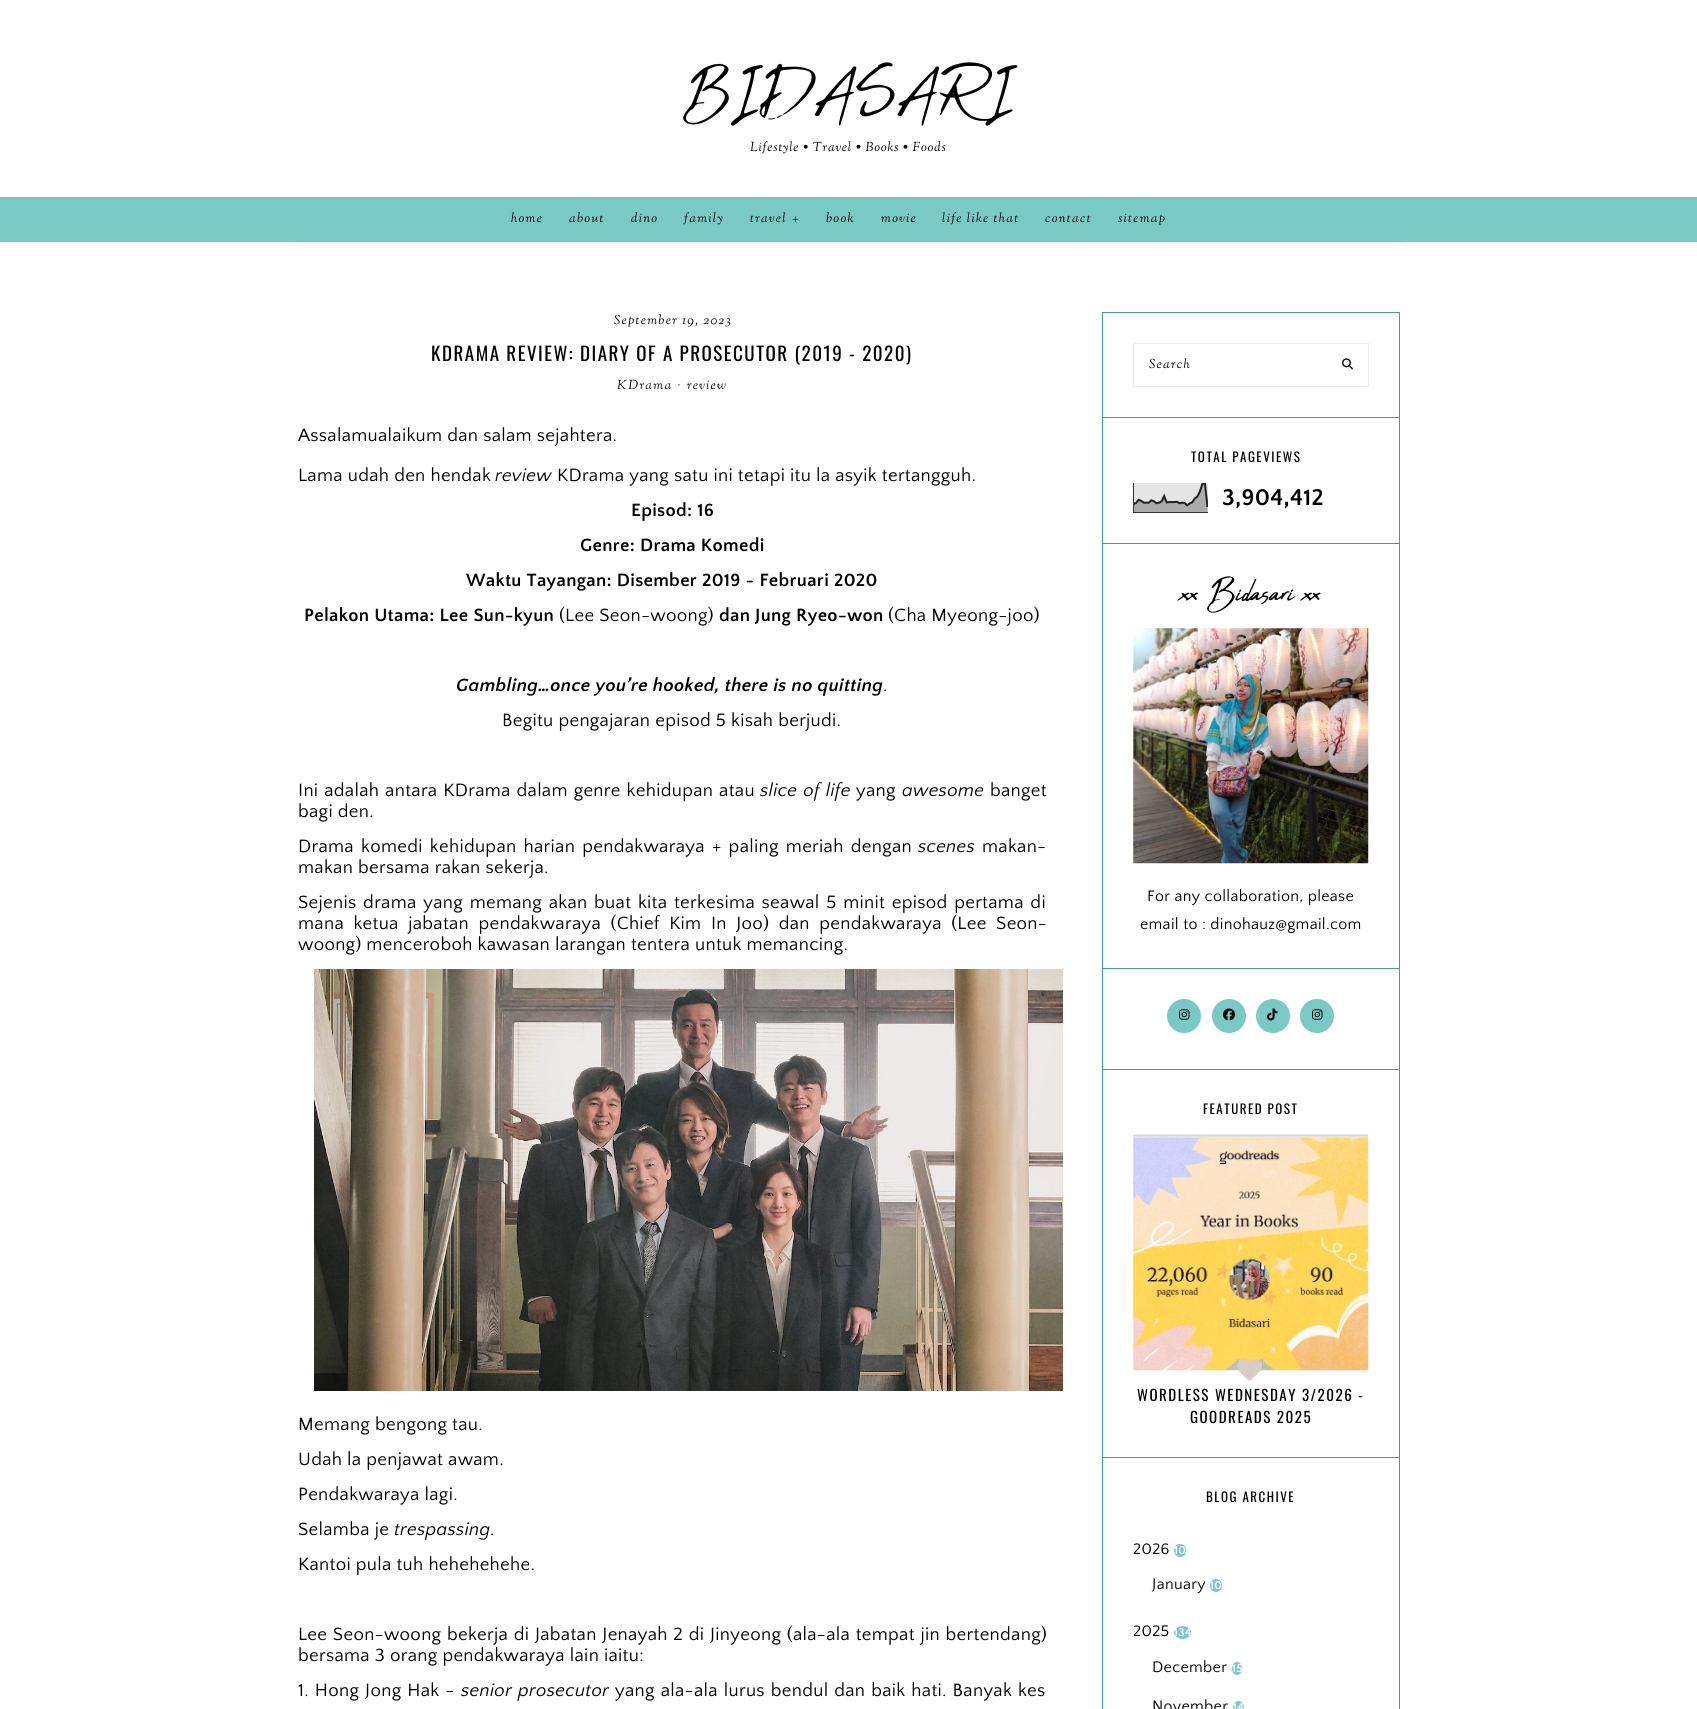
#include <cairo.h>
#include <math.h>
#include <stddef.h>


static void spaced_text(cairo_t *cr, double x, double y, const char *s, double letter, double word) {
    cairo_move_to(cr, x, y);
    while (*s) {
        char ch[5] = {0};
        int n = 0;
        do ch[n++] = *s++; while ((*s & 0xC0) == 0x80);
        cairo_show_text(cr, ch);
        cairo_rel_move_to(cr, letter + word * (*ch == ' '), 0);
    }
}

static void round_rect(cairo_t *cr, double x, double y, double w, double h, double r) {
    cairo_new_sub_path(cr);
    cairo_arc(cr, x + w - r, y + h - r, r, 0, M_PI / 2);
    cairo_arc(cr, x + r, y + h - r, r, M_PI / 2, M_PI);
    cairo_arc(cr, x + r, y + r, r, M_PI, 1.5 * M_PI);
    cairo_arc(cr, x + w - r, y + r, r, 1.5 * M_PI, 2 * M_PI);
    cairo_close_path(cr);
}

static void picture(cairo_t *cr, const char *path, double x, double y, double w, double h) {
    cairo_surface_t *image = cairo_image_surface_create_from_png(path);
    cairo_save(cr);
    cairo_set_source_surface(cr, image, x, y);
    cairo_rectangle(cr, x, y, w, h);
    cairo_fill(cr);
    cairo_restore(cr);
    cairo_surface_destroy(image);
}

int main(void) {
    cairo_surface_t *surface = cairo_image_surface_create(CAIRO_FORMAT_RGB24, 1697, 1709);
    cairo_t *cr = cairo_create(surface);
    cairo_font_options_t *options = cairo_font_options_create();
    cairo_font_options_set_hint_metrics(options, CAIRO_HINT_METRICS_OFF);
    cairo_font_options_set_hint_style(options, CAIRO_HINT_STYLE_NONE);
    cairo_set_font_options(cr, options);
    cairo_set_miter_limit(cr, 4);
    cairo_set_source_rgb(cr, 1, 1, 1);
    cairo_paint(cr);
    cairo_select_font_face(cr, "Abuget", CAIRO_FONT_SLANT_NORMAL, CAIRO_FONT_WEIGHT_NORMAL);
    cairo_set_font_size(cr, 70);
    cairo_set_source_rgb(cr, 0, 0, 0);
    cairo_move_to(cr, 683, 115);
    cairo_show_text(cr, "BIDASARI");
    cairo_select_font_face(cr, "Sorts Mill Goudy", CAIRO_FONT_SLANT_ITALIC, CAIRO_FONT_WEIGHT_NORMAL);
    cairo_set_font_size(cr, 13);
    spaced_text(cr, 750, 151, "Lifestyle • Travel • Books • Foods", 0.8, 0);
    cairo_set_source_rgb(cr, 0.475, 0.788, 0.773);
    cairo_rectangle(cr, 0, 197, 1697, 45);
    cairo_fill(cr);
    cairo_set_source_rgb(cr, 0.937, 0.918, 0.91);
    cairo_rectangle(cr, 294, 242, 1110, 1);
    cairo_fill(cr);
    cairo_set_source_rgb(cr, 0, 0, 0);
    spaced_text(cr, 511, 222, "home", 1.25, 0);
    spaced_text(cr, 569, 222, "about", 1.25, 0);
    spaced_text(cr, 631, 222, "dino", 1.25, 0);
    spaced_text(cr, 684, 222, "family", 1.25, 0);
    spaced_text(cr, 750, 222, "travel", 1.25, 0);
    cairo_select_font_face(cr, "Sorts Mill Goudy", CAIRO_FONT_SLANT_NORMAL, CAIRO_FONT_WEIGHT_NORMAL);
    spaced_text(cr, 792, 222, "+", 1.25, 0);
    cairo_select_font_face(cr, "Sorts Mill Goudy", CAIRO_FONT_SLANT_ITALIC, CAIRO_FONT_WEIGHT_NORMAL);
    spaced_text(cr, 826, 222, "book", 1.25, 0);
    spaced_text(cr, 881, 222, "movie", 1.25, 0);
    spaced_text(cr, 942, 222, "life like that", 1.25, 0);
    spaced_text(cr, 1045, 222, "contact", 1.25, 0);
    spaced_text(cr, 1118, 222, "sitemap", 1.25, 0);
    spaced_text(cr, 614, 324, "September 19, 2023", 1.25, 0);
    cairo_select_font_face(cr, "Oswald", CAIRO_FONT_SLANT_NORMAL, CAIRO_FONT_WEIGHT_NORMAL);
    cairo_set_font_size(cr, 19);
    spaced_text(cr, 431, 361, "KDRAMA REVIEW: DIARY OF A PROSECUTOR (2019 - 2020)", 1.5, 0);
    cairo_select_font_face(cr, "Sorts Mill Goudy", CAIRO_FONT_SLANT_ITALIC, CAIRO_FONT_WEIGHT_NORMAL);
    cairo_set_font_size(cr, 13);
    spaced_text(cr, 617, 389, "KDrama", 1.25, 0);
    spaced_text(cr, 677, 389, "·", 1.25, 0);
    spaced_text(cr, 687, 389, "review", 1.25, 0);
    cairo_select_font_face(cr, "Quattrocento Sans", CAIRO_FONT_SLANT_NORMAL, CAIRO_FONT_WEIGHT_NORMAL);
    cairo_set_font_size(cr, 18.65);
    spaced_text(cr, 298, 441, "Assalamualaikum dan salam sejahtera.", 0.3, 0);
    spaced_text(cr, 298, 481, "Lama udah den hendak", 0.3, 0);
    cairo_select_font_face(cr, "Quattrocento Sans", CAIRO_FONT_SLANT_ITALIC, CAIRO_FONT_WEIGHT_NORMAL);
    spaced_text(cr, 495, 481, "review", 0.3, 0);
    cairo_select_font_face(cr, "Quattrocento Sans", CAIRO_FONT_SLANT_NORMAL, CAIRO_FONT_WEIGHT_NORMAL);
    spaced_text(cr, 557, 481, "KDrama yang satu ini tetapi itu la asyik tertangguh.", 0.3, 0);
    cairo_select_font_face(cr, "Quattrocento Sans", CAIRO_FONT_SLANT_NORMAL, CAIRO_FONT_WEIGHT_BOLD);
    spaced_text(cr, 631, 516, "Episod: 16", 0.3, 0);
    spaced_text(cr, 580, 551, "Genre: Drama Komedi", 0.3, 0);
    spaced_text(cr, 466, 586, "Waktu Tayangan: Disember 2019 - Februari 2020", 0.3, 0);
    spaced_text(cr, 304, 621, "Pelakon Utama: Lee Sun-kyun", 0.3, 0);
    cairo_select_font_face(cr, "Quattrocento Sans", CAIRO_FONT_SLANT_NORMAL, CAIRO_FONT_WEIGHT_NORMAL);
    spaced_text(cr, 559, 621, "(Lee Seon-woong)", 0.3, 0);
    cairo_select_font_face(cr, "Quattrocento Sans", CAIRO_FONT_SLANT_NORMAL, CAIRO_FONT_WEIGHT_BOLD);
    spaced_text(cr, 719, 621, "dan Jung Ryeo-won", 0.3, 0);
    cairo_select_font_face(cr, "Quattrocento Sans", CAIRO_FONT_SLANT_NORMAL, CAIRO_FONT_WEIGHT_NORMAL);
    spaced_text(cr, 888, 621, "(Cha Myeong-joo)", 0.3, 0);
    cairo_select_font_face(cr, "Quattrocento Sans", CAIRO_FONT_SLANT_ITALIC, CAIRO_FONT_WEIGHT_BOLD);
    spaced_text(cr, 456, 691, "Gambling…once you’re hooked, there is no quitting", 0.3, 0);
    cairo_select_font_face(cr, "Quattrocento Sans", CAIRO_FONT_SLANT_NORMAL, CAIRO_FONT_WEIGHT_NORMAL);
    spaced_text(cr, 883, 691, ".", 0.3, 0);
    spaced_text(cr, 502, 726, "Begitu pengajaran episod 5 kisah berjudi.", 0.3, 0);
    spaced_text(cr, 298, 796, "Ini adalah antara KDrama dalam genre kehidupan atau", 0.3, 1);
    cairo_select_font_face(cr, "Quattrocento Sans", CAIRO_FONT_SLANT_ITALIC, CAIRO_FONT_WEIGHT_NORMAL);
    spaced_text(cr, 760, 796, "slice of life", 0.3, 1);
    cairo_select_font_face(cr, "Quattrocento Sans", CAIRO_FONT_SLANT_NORMAL, CAIRO_FONT_WEIGHT_NORMAL);
    spaced_text(cr, 856, 796, "yang", 0.3, 0);
    cairo_select_font_face(cr, "Quattrocento Sans", CAIRO_FONT_SLANT_ITALIC, CAIRO_FONT_WEIGHT_NORMAL);
    spaced_text(cr, 902, 796, "awesome", 0.3, 0);
    cairo_select_font_face(cr, "Quattrocento Sans", CAIRO_FONT_SLANT_NORMAL, CAIRO_FONT_WEIGHT_NORMAL);
    spaced_text(cr, 990, 796, "banget", 0.3, 0);
    spaced_text(cr, 298, 817, "bagi den.", 0.3, 0);
    spaced_text(cr, 298, 852, "Drama komedi kehidupan harian pendakwaraya + paling meriah dengan", 0.3, 2.25);
    cairo_select_font_face(cr, "Quattrocento Sans", CAIRO_FONT_SLANT_ITALIC, CAIRO_FONT_WEIGHT_NORMAL);
    spaced_text(cr, 918, 852, "scenes", 0.3, 0);
    cairo_select_font_face(cr, "Quattrocento Sans", CAIRO_FONT_SLANT_NORMAL, CAIRO_FONT_WEIGHT_NORMAL);
    spaced_text(cr, 982, 852, "makan-", 0.3, 0);
    spaced_text(cr, 298, 873, "makan bersama rakan sekerja.", 0.3, 0);
    spaced_text(cr, 298, 908, "Sejenis drama yang memang akan buat kita terkesima seawal 5 minit episod pertama di", 0.3, 1.75);
    spaced_text(cr, 298, 929, "mana ketua jabatan pendakwaraya (Chief Kim In Joo) dan pendakwaraya (Lee Seon-", 0.3, 4.6);
    spaced_text(cr, 298, 950, "woong) menceroboh kawasan larangan tentera untuk memancing.", 0.3, 0);
    picture(cr, "img1.png", 314, 969, 749, 422);
    spaced_text(cr, 298, 1430, "Memang bengong tau.", 0.3, 0);
    spaced_text(cr, 298, 1465, "Udah la penjawat awam.", 0.3, 0);
    spaced_text(cr, 298, 1500, "Pendakwaraya lagi.", 0.3, 0);
    spaced_text(cr, 298, 1535, "Selamba je", 0.3, 0);
    cairo_select_font_face(cr, "Quattrocento Sans", CAIRO_FONT_SLANT_ITALIC, CAIRO_FONT_WEIGHT_NORMAL);
    spaced_text(cr, 394, 1535, "trespassing", 0.3, 0);
    cairo_select_font_face(cr, "Quattrocento Sans", CAIRO_FONT_SLANT_NORMAL, CAIRO_FONT_WEIGHT_NORMAL);
    spaced_text(cr, 490, 1535, ".", 0.3, 0);
    spaced_text(cr, 298, 1570, "Kantoi pula tuh hehehehehe.", 0.3, 0);
    spaced_text(cr, 298, 1640, "Lee Seon-woong bekerja di Jabatan Jenayah 2 di Jinyeong (ala-ala tempat jin bertendang)", 0.3, 0.75);
    spaced_text(cr, 298, 1661, "bersama 3 orang pendakwaraya lain iaitu:", 0.3, 0);
    spaced_text(cr, 298, 1696, "1. Hong Jong Hak -", 0.3, 1);
    cairo_select_font_face(cr, "Quattrocento Sans", CAIRO_FONT_SLANT_ITALIC, CAIRO_FONT_WEIGHT_NORMAL);
    spaced_text(cr, 461, 1696, "senior prosecutor", 0.3, 1);
    cairo_select_font_face(cr, "Quattrocento Sans", CAIRO_FONT_SLANT_NORMAL, CAIRO_FONT_WEIGHT_NORMAL);
    spaced_text(cr, 615, 1696, "yang ala-ala lurus bendul dan baik hati. Banyak kes", 0.3, 1);
    cairo_rectangle(cr, 1102.5, 312.5, 297, 105);
    cairo_set_source_rgb(cr, 0.247, 0.604, 0.682);
    cairo_set_line_width(cr, 1);
    cairo_stroke(cr);
    cairo_rectangle(cr, 1133.5, 343.5, 235, 43);
    cairo_set_source_rgb(cr, 0.937, 0.918, 0.91);
    cairo_stroke(cr);
    cairo_select_font_face(cr, "Sorts Mill Goudy", CAIRO_FONT_SLANT_ITALIC, CAIRO_FONT_WEIGHT_NORMAL);
    cairo_set_font_size(cr, 13);
    cairo_set_source_rgb(cr, 0, 0, 0);
    spaced_text(cr, 1149, 368, "Search", 1.25, 0);
    picture(cr, "img2.png", 1342, 358, 11, 12);
    cairo_rectangle(cr, 1102.5, 417.5, 297, 126);
    cairo_set_source_rgb(cr, 0.247, 0.604, 0.682);
    cairo_stroke(cr);
    cairo_select_font_face(cr, "Oswald", CAIRO_FONT_SLANT_NORMAL, CAIRO_FONT_WEIGHT_NORMAL);
    cairo_set_source_rgb(cr, 0, 0, 0);
    spaced_text(cr, 1191, 462, "TOTAL PAGEVIEWS", 1.5, 0);
    picture(cr, "img3.png", 1133, 483, 75, 30);
    cairo_select_font_face(cr, "Quattrocento Sans", CAIRO_FONT_SLANT_NORMAL, CAIRO_FONT_WEIGHT_BOLD);
    cairo_set_font_size(cr, 24);
    spaced_text(cr, 1222, 505, "3,904,412", 0.3, 0);
    cairo_rectangle(cr, 1102.5, 543.5, 297, 425);
    cairo_set_source_rgb(cr, 0.247, 0.604, 0.682);
    cairo_stroke(cr);
    cairo_select_font_face(cr, "Abuget", CAIRO_FONT_SLANT_NORMAL, CAIRO_FONT_WEIGHT_NORMAL);
    cairo_set_font_size(cr, 42);
    cairo_set_source_rgb(cr, 0, 0, 0);
    cairo_move_to(cr, 1181, 607);
    cairo_show_text(cr, "xx Bidasari xx");
    picture(cr, "img4.png", 1133, 628, 236, 236);
    cairo_select_font_face(cr, "Quattrocento Sans", CAIRO_FONT_SLANT_NORMAL, CAIRO_FONT_WEIGHT_NORMAL);
    cairo_set_font_size(cr, 16);
    spaced_text(cr, 1147, 901, "For any collaboration, please", 0.3, 0);
    spaced_text(cr, 1140, 929, "email to : dinohauz@gmail.com", 0.3, 0);
    cairo_rectangle(cr, 1102.5, 968.5, 297, 101);
    cairo_set_source_rgb(cr, 0.247, 0.604, 0.682);
    cairo_stroke(cr);
    cairo_set_source_rgb(cr, 0.475, 0.788, 0.773);
    cairo_arc(cr, 1184, 1016, 17, 0, 2 * M_PI);
    cairo_fill(cr);
    picture(cr, "img5.png", 1179, 1009, 11, 11);
    cairo_arc(cr, 1229, 1016, 17, 0, 2 * M_PI);
    cairo_fill(cr);
    picture(cr, "img6.png", 1223, 1008, 12, 13);
    cairo_arc(cr, 1273, 1016, 17, 0, 2 * M_PI);
    cairo_fill(cr);
    picture(cr, "img7.png", 1267, 1008, 11, 13);
    cairo_arc(cr, 1317, 1016, 17, 0, 2 * M_PI);
    cairo_fill(cr);
    picture(cr, "img5.png", 1312, 1009, 11, 11);
    cairo_rectangle(cr, 1102.5, 1069.5, 297, 388);
    cairo_set_source_rgb(cr, 0.247, 0.604, 0.682);
    cairo_stroke(cr);
    cairo_select_font_face(cr, "Oswald", CAIRO_FONT_SLANT_NORMAL, CAIRO_FONT_WEIGHT_NORMAL);
    cairo_set_font_size(cr, 13);
    cairo_set_source_rgb(cr, 0, 0, 0);
    spaced_text(cr, 1203, 1114, "FEATURED POST", 1.5, 0);
    picture(cr, "img8.png", 1133, 1134, 236, 237);
    picture(cr, "img9.png", 1237, 1359, 25, 22);
    cairo_set_font_size(cr, 15);
    spaced_text(cr, 1137, 1401, "WORDLESS WEDNESDAY 3/2026 -", 1.5, 0);
    spaced_text(cr, 1190, 1423, "GOODREADS 2025", 1.5, 0);
    cairo_rectangle(cr, 1102.5, 1457.5, 297, 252);
    cairo_set_source_rgb(cr, 0.247, 0.604, 0.682);
    cairo_stroke(cr);
    cairo_set_font_size(cr, 13);
    cairo_set_source_rgb(cr, 0, 0, 0);
    spaced_text(cr, 1206, 1502, "BLOG ARCHIVE", 1.5, 0);
    cairo_select_font_face(cr, "Quattrocento Sans", CAIRO_FONT_SLANT_NORMAL, CAIRO_FONT_WEIGHT_NORMAL);
    cairo_set_font_size(cr, 16);
    spaced_text(cr, 1133, 1554, "2026", 0.3, 0);
    cairo_set_source_rgb(cr, 0.475, 0.788, 0.773);
    round_rect(cr, 1174, 1544, 12, 13, 6);
    cairo_fill(cr);
    cairo_select_font_face(cr, "Quattrocento Sans", CAIRO_FONT_SLANT_NORMAL, CAIRO_FONT_WEIGHT_BOLD);
    cairo_set_font_size(cr, 12);
    cairo_set_source_rgb(cr, 1, 1, 1);
    spaced_text(cr, 1174, 1554, "10", 0.3, 0);
    cairo_select_font_face(cr, "Quattrocento Sans", CAIRO_FONT_SLANT_NORMAL, CAIRO_FONT_WEIGHT_NORMAL);
    cairo_set_font_size(cr, 16);
    cairo_set_source_rgb(cr, 0, 0, 0);
    spaced_text(cr, 1152, 1589, "January", 0.3, 0);
    cairo_set_source_rgb(cr, 0.475, 0.788, 0.773);
    round_rect(cr, 1210, 1579, 12, 13, 6);
    cairo_fill(cr);
    cairo_select_font_face(cr, "Quattrocento Sans", CAIRO_FONT_SLANT_NORMAL, CAIRO_FONT_WEIGHT_BOLD);
    cairo_set_font_size(cr, 12);
    cairo_set_source_rgb(cr, 1, 1, 1);
    spaced_text(cr, 1210, 1589, "10", 0.3, 0);
    cairo_select_font_face(cr, "Quattrocento Sans", CAIRO_FONT_SLANT_NORMAL, CAIRO_FONT_WEIGHT_NORMAL);
    cairo_set_font_size(cr, 16);
    cairo_set_source_rgb(cr, 0, 0, 0);
    spaced_text(cr, 1133, 1636, "2025", 0.3, 0);
    cairo_set_source_rgb(cr, 0.475, 0.788, 0.773);
    cairo_new_path(cr);
    cairo_move_to(cr, 1182.5, 1626);
    cairo_curve_to(cr, 1187, 1626, 1191, 1629, 1191, 1632.5);
    cairo_curve_to(cr, 1191, 1636, 1187, 1639, 1182.5, 1639);
    cairo_curve_to(cr, 1178, 1639, 1174, 1636, 1174, 1632.5);
    cairo_curve_to(cr, 1174, 1629, 1178, 1626, 1182.5, 1626);
    cairo_close_path(cr);
    cairo_fill(cr);
    cairo_select_font_face(cr, "Quattrocento Sans", CAIRO_FONT_SLANT_NORMAL, CAIRO_FONT_WEIGHT_BOLD);
    cairo_set_font_size(cr, 12);
    cairo_set_source_rgb(cr, 1, 1, 1);
    spaced_text(cr, 1174, 1636, "134", 0.3, 0);
    cairo_select_font_face(cr, "Quattrocento Sans", CAIRO_FONT_SLANT_NORMAL, CAIRO_FONT_WEIGHT_NORMAL);
    cairo_set_font_size(cr, 16);
    cairo_set_source_rgb(cr, 0, 0, 0);
    spaced_text(cr, 1152, 1672, "December", 0.3, 0);
    cairo_set_source_rgb(cr, 0.475, 0.788, 0.773);
    cairo_new_path(cr);
    cairo_move_to(cr, 1237, 1662);
    cairo_curve_to(cr, 1240, 1662, 1242, 1665, 1242, 1668.5);
    cairo_curve_to(cr, 1242, 1672, 1240, 1675, 1237, 1675);
    cairo_curve_to(cr, 1234, 1675, 1232, 1672, 1232, 1668.5);
    cairo_curve_to(cr, 1232, 1665, 1234, 1662, 1237, 1662);
    cairo_close_path(cr);
    cairo_fill(cr);
    cairo_select_font_face(cr, "Quattrocento Sans", CAIRO_FONT_SLANT_NORMAL, CAIRO_FONT_WEIGHT_BOLD);
    cairo_set_font_size(cr, 12);
    cairo_set_source_rgb(cr, 1, 1, 1);
    spaced_text(cr, 1232, 1672, "15", 0.3, 0);
    cairo_select_font_face(cr, "Quattrocento Sans", CAIRO_FONT_SLANT_NORMAL, CAIRO_FONT_WEIGHT_NORMAL);
    cairo_set_font_size(cr, 16);
    cairo_set_source_rgb(cr, 0, 0, 0);
    spaced_text(cr, 1152, 1711, "November", 0.3, 0);
    cairo_set_source_rgb(cr, 0.475, 0.788, 0.773);
    cairo_new_path(cr);
    cairo_move_to(cr, 1238.5, 1701);
    cairo_curve_to(cr, 1241.5, 1701, 1244, 1704, 1244, 1707.5);
    cairo_curve_to(cr, 1244, 1711, 1241.5, 1714, 1238.5, 1714);
    cairo_curve_to(cr, 1235.5, 1714, 1233, 1711, 1233, 1707.5);
    cairo_curve_to(cr, 1233, 1704, 1235.5, 1701, 1238.5, 1701);
    cairo_close_path(cr);
    cairo_fill(cr);
    cairo_select_font_face(cr, "Quattrocento Sans", CAIRO_FONT_SLANT_NORMAL, CAIRO_FONT_WEIGHT_BOLD);
    cairo_set_font_size(cr, 12);
    cairo_set_source_rgb(cr, 1, 1, 1);
    spaced_text(cr, 1233, 1711, "14", 0.3, 0);
    cairo_surface_write_to_png(surface, "page.png");
    cairo_font_options_destroy(options);
    cairo_destroy(cr);
    cairo_surface_destroy(surface);
    return 0;
}
